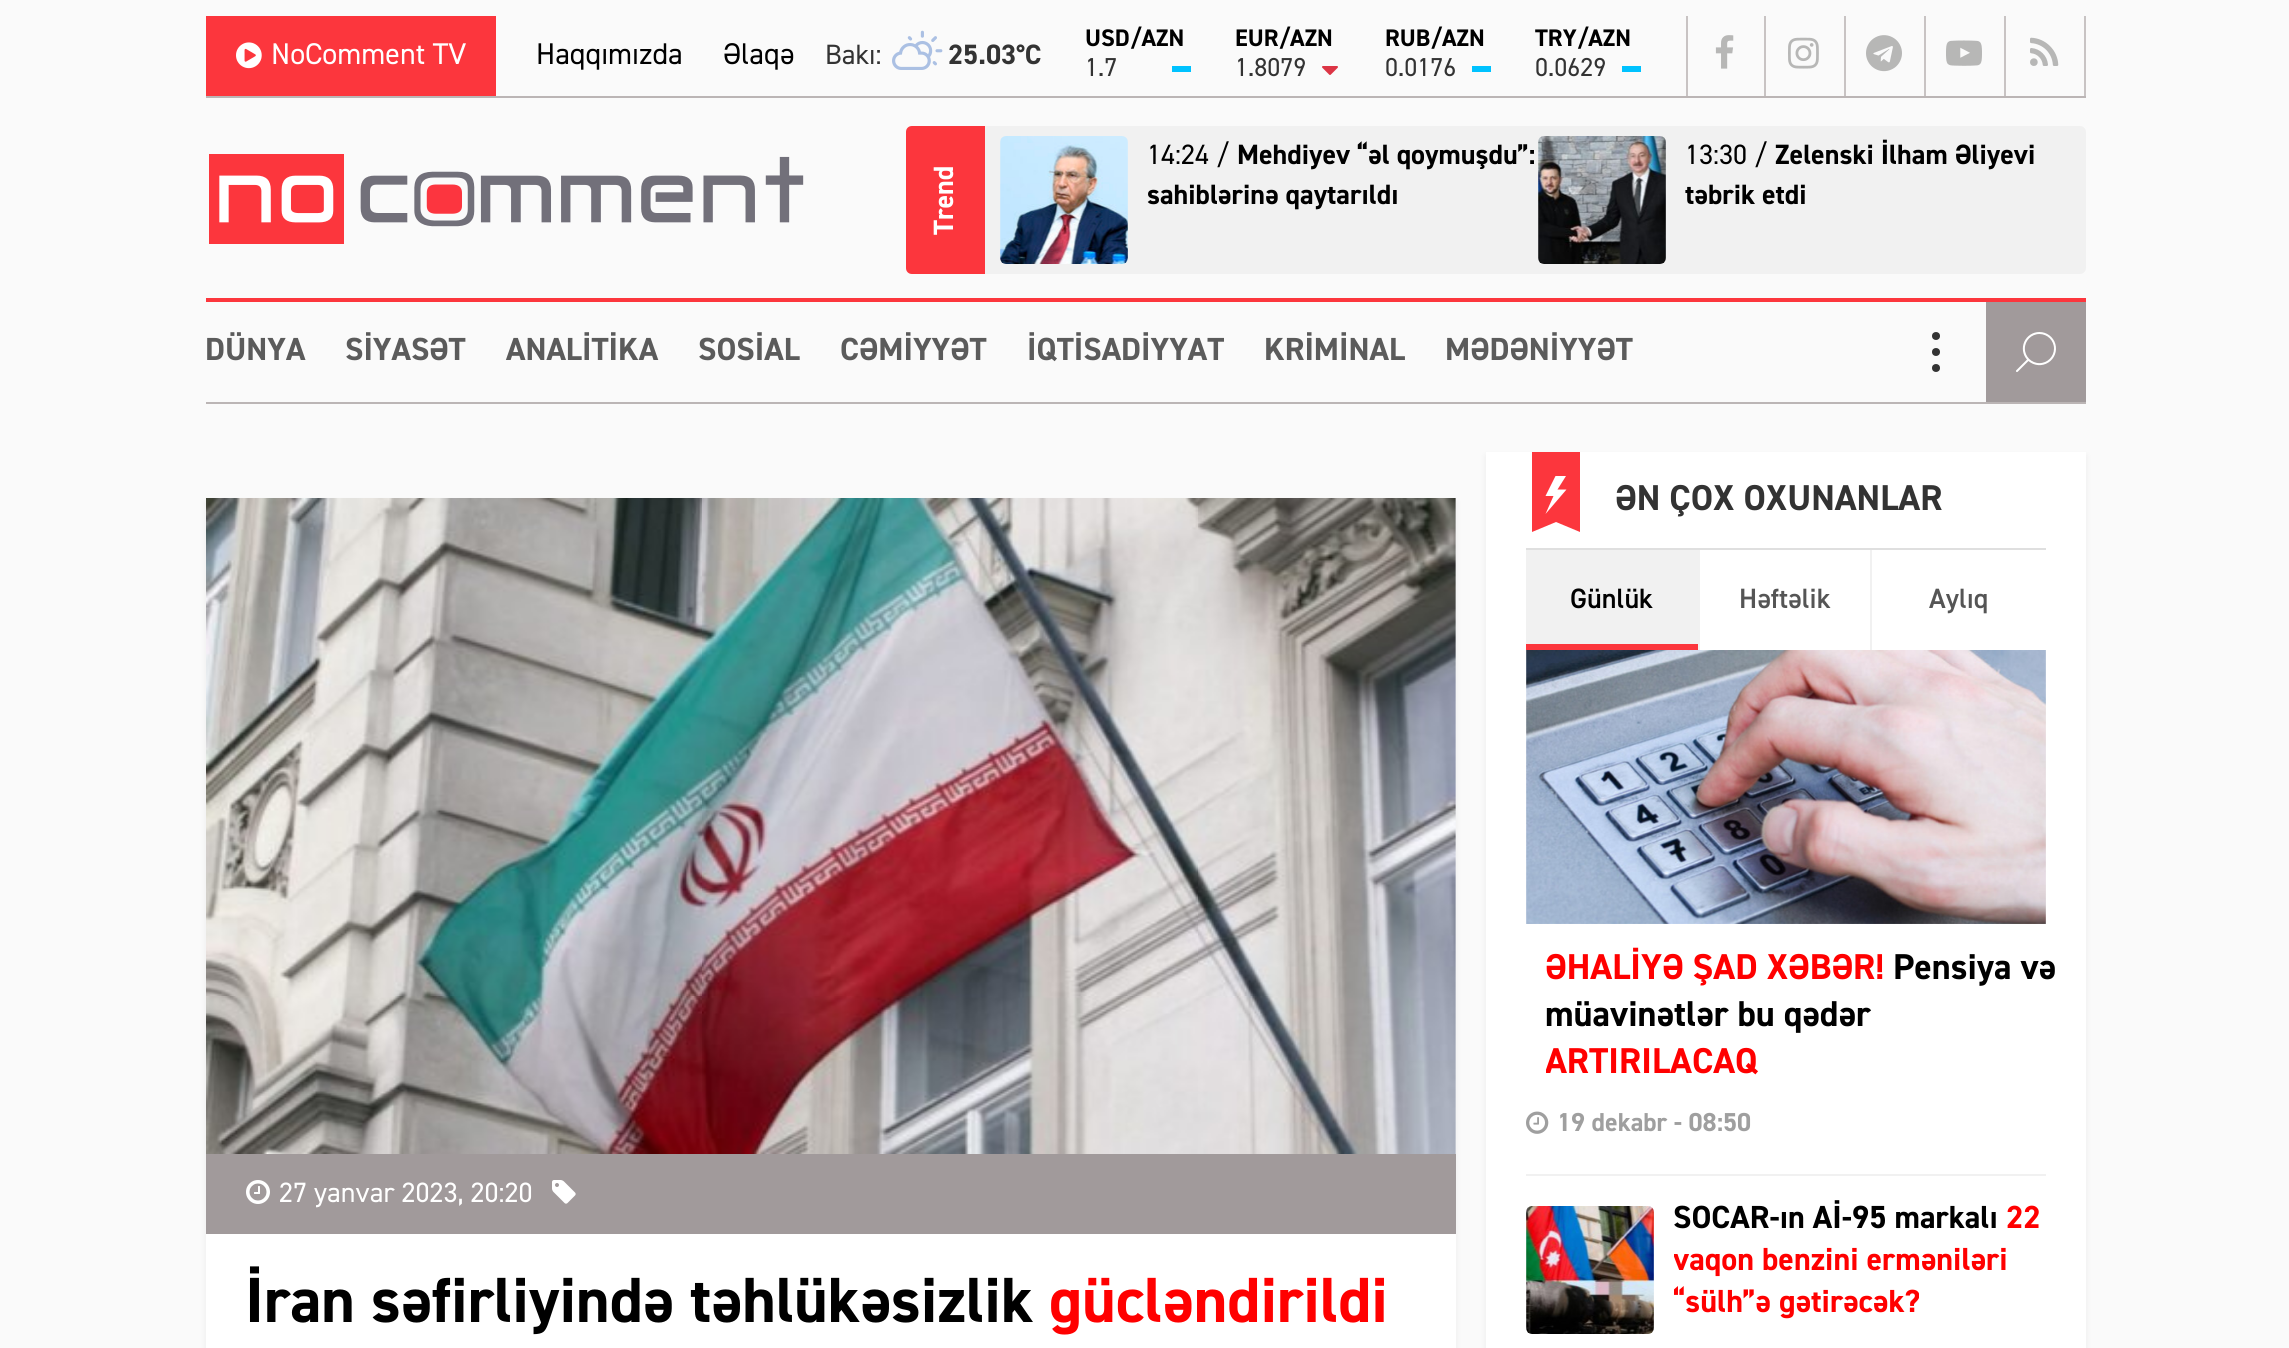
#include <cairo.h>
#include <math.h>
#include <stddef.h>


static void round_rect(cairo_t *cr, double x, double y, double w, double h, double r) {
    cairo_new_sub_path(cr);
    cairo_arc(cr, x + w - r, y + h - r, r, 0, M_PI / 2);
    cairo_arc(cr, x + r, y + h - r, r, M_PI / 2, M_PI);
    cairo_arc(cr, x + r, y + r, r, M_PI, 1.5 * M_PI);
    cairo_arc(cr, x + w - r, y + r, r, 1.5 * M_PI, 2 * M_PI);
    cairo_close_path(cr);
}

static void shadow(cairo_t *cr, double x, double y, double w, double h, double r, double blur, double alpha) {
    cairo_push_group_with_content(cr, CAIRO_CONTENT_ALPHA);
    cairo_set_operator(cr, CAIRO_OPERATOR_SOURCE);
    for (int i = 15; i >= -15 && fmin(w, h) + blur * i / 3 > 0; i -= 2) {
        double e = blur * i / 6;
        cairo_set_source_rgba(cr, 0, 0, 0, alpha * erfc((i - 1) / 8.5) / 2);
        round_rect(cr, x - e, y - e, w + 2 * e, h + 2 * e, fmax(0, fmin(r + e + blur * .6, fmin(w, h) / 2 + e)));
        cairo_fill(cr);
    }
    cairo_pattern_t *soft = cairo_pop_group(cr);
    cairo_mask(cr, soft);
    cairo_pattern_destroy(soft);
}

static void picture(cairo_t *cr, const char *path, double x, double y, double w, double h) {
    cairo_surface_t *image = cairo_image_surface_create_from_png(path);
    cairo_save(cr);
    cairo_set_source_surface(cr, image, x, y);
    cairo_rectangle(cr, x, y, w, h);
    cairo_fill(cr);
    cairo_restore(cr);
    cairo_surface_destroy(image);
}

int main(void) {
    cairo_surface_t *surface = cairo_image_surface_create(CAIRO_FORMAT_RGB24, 2289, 1348);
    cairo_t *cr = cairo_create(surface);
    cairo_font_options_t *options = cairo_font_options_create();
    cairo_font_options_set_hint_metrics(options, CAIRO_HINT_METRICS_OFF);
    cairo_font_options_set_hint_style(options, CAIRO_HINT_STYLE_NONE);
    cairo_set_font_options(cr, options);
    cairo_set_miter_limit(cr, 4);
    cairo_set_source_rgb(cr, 0.98, 0.98, 0.98);
    cairo_paint(cr);
    cairo_set_source_rgb(cr, 0.733, 0.71, 0.71);
    cairo_rectangle(cr, 206, 96, 1880, 2);
    cairo_fill(cr);
    cairo_set_source_rgb(cr, 0.988, 0.212, 0.239);
    cairo_rectangle(cr, 206, 16, 290, 80);
    cairo_fill(cr);
    picture(cr, "img1.png", 236, 42, 26, 27);
    cairo_select_font_face(cr, "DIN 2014", CAIRO_FONT_SLANT_NORMAL, CAIRO_FONT_WEIGHT_NORMAL);
    cairo_set_font_size(cr, 30);
    cairo_set_source_rgb(cr, 1, 1, 1);
    cairo_move_to(cr, 271, 64);
    cairo_show_text(cr, "NoComment TV");
    cairo_set_source_rgb(cr, 0, 0, 0);
    cairo_move_to(cr, 536, 64);
    cairo_show_text(cr, "Haqqımızda");
    cairo_move_to(cr, 723, 64);
    cairo_show_text(cr, "Əlaqə");
    cairo_set_font_size(cr, 28);
    cairo_set_source_rgb(cr, 0.2, 0.2, 0.2);
    cairo_move_to(cr, 825, 64);
    cairo_show_text(cr, "Bakı:");
    picture(cr, "img2.png", 892, 30, 51, 40);
    cairo_select_font_face(cr, "DIN 2014", CAIRO_FONT_SLANT_NORMAL, CAIRO_FONT_WEIGHT_BOLD);
    cairo_move_to(cr, 948, 64);
    cairo_show_text(cr, "25.03°C");
    cairo_set_font_size(cr, 24);
    cairo_set_source_rgb(cr, 0, 0, 0);
    cairo_move_to(cr, 1085, 46);
    cairo_show_text(cr, "USD/AZN");
    cairo_select_font_face(cr, "DIN 2014", CAIRO_FONT_SLANT_NORMAL, CAIRO_FONT_WEIGHT_NORMAL);
    cairo_set_font_size(cr, 26);
    cairo_set_source_rgb(cr, 0.2, 0.2, 0.2);
    cairo_move_to(cr, 1085, 76);
    cairo_show_text(cr, "1.7");
    cairo_set_source_rgb(cr, 0, 0.761, 1);
    cairo_rectangle(cr, 1172, 66, 19, 6);
    cairo_fill(cr);
    cairo_select_font_face(cr, "DIN 2014", CAIRO_FONT_SLANT_NORMAL, CAIRO_FONT_WEIGHT_BOLD);
    cairo_set_font_size(cr, 24);
    cairo_set_source_rgb(cr, 0, 0, 0);
    cairo_move_to(cr, 1235, 46);
    cairo_show_text(cr, "EUR/AZN");
    cairo_select_font_face(cr, "DIN 2014", CAIRO_FONT_SLANT_NORMAL, CAIRO_FONT_WEIGHT_NORMAL);
    cairo_set_font_size(cr, 26);
    cairo_set_source_rgb(cr, 0.2, 0.2, 0.2);
    cairo_move_to(cr, 1235, 76);
    cairo_show_text(cr, "1.8079");
    picture(cr, "img3.png", 1322, 66, 16, 9);
    cairo_select_font_face(cr, "DIN 2014", CAIRO_FONT_SLANT_NORMAL, CAIRO_FONT_WEIGHT_BOLD);
    cairo_set_font_size(cr, 24);
    cairo_set_source_rgb(cr, 0, 0, 0);
    cairo_move_to(cr, 1385, 46);
    cairo_show_text(cr, "RUB/AZN");
    cairo_select_font_face(cr, "DIN 2014", CAIRO_FONT_SLANT_NORMAL, CAIRO_FONT_WEIGHT_NORMAL);
    cairo_set_font_size(cr, 26);
    cairo_set_source_rgb(cr, 0.2, 0.2, 0.2);
    cairo_move_to(cr, 1385, 76);
    cairo_show_text(cr, "0.0176");
    cairo_set_source_rgb(cr, 0, 0.761, 1);
    cairo_rectangle(cr, 1472, 66, 19, 6);
    cairo_fill(cr);
    cairo_select_font_face(cr, "DIN 2014", CAIRO_FONT_SLANT_NORMAL, CAIRO_FONT_WEIGHT_BOLD);
    cairo_set_font_size(cr, 24);
    cairo_set_source_rgb(cr, 0, 0, 0);
    cairo_move_to(cr, 1535, 46);
    cairo_show_text(cr, "TRY/AZN");
    cairo_select_font_face(cr, "DIN 2014", CAIRO_FONT_SLANT_NORMAL, CAIRO_FONT_WEIGHT_NORMAL);
    cairo_set_font_size(cr, 26);
    cairo_set_source_rgb(cr, 0.2, 0.2, 0.2);
    cairo_move_to(cr, 1535, 76);
    cairo_show_text(cr, "0.0629");
    cairo_set_source_rgb(cr, 0, 0.761, 1);
    cairo_rectangle(cr, 1622, 66, 19, 6);
    cairo_fill(cr);
    cairo_set_source_rgb(cr, 0.784, 0.765, 0.765);
    cairo_rectangle(cr, 1764, 16, 2, 80);
    cairo_fill(cr);
    cairo_rectangle(cr, 1686, 16, 2, 80);
    cairo_fill(cr);
    picture(cr, "img4.png", 1715, 35, 19, 34);
    cairo_rectangle(cr, 1844, 16, 2, 80);
    cairo_fill(cr);
    picture(cr, "img5.png", 1788, 37, 31, 32);
    cairo_rectangle(cr, 1924, 16, 2, 80);
    cairo_fill(cr);
    picture(cr, "img6.png", 1866, 35, 36, 37);
    cairo_rectangle(cr, 2004, 16, 2, 80);
    cairo_fill(cr);
    picture(cr, "img7.png", 1946, 40, 36, 26);
    cairo_rectangle(cr, 2084, 16, 2, 80);
    cairo_fill(cr);
    picture(cr, "img8.png", 2030, 37, 29, 29);
    cairo_set_source_rgb(cr, 0.988, 0.212, 0.239);
    cairo_rectangle(cr, 206, 298, 1880, 4);
    cairo_fill(cr);
    picture(cr, "img9.png", 209, 154, 595, 90);
    cairo_set_source_rgb(cr, 0.945, 0.945, 0.945);
    round_rect(cr, 906, 126, 1180, 148, 6);
    cairo_fill(cr);
    cairo_set_source_rgb(cr, 0.988, 0.212, 0.239);
    cairo_new_path(cr);
    cairo_move_to(cr, 912, 126);
    cairo_line_to(cr, 985, 126);
    cairo_line_to(cr, 985, 274);
    cairo_line_to(cr, 912, 274);
    cairo_curve_to(cr, 908.5, 274, 906, 271.5, 906, 268);
    cairo_line_to(cr, 906, 132);
    cairo_curve_to(cr, 906, 128.5, 908.5, 126, 912, 126);
    cairo_close_path(cr);
    cairo_fill(cr);
    cairo_select_font_face(cr, "DIN 2014", CAIRO_FONT_SLANT_NORMAL, CAIRO_FONT_WEIGHT_BOLD);
    cairo_set_font_size(cr, 28);
    cairo_set_source_rgb(cr, 1, 1, 1);
    cairo_save(cr);
    cairo_translate(cr, 953, 235);
    cairo_rotate(cr, -90 * M_PI / 180);
    cairo_move_to(cr, 0, 0);
    cairo_show_text(cr, "Trend");
    cairo_restore(cr);
    picture(cr, "img10.png", 1000, 136, 128, 128);
    cairo_select_font_face(cr, "DIN 2014", CAIRO_FONT_SLANT_NORMAL, CAIRO_FONT_WEIGHT_NORMAL);
    cairo_set_source_rgb(cr, 0, 0, 0);
    cairo_move_to(cr, 1147, 164);
    cairo_show_text(cr, "14:24 /");
    cairo_select_font_face(cr, "DIN 2014", CAIRO_FONT_SLANT_NORMAL, CAIRO_FONT_WEIGHT_BOLD);
    cairo_move_to(cr, 1237, 164);
    cairo_show_text(cr, "Mehdiyev “əl qoymuşdu”:");
    cairo_move_to(cr, 1147, 204);
    cairo_show_text(cr, "sahiblərinə qaytarıldı");
    picture(cr, "img11.png", 1538, 136, 128, 128);
    cairo_select_font_face(cr, "DIN 2014", CAIRO_FONT_SLANT_NORMAL, CAIRO_FONT_WEIGHT_NORMAL);
    cairo_move_to(cr, 1685, 164);
    cairo_show_text(cr, "13:30 /");
    cairo_select_font_face(cr, "DIN 2014", CAIRO_FONT_SLANT_NORMAL, CAIRO_FONT_WEIGHT_BOLD);
    cairo_move_to(cr, 1775, 164);
    cairo_show_text(cr, "Zelenski İlham Əliyevi");
    cairo_move_to(cr, 1685, 204);
    cairo_show_text(cr, "təbrik etdi");
    cairo_set_source_rgb(cr, 0.733, 0.71, 0.71);
    cairo_rectangle(cr, 206, 402, 1880, 2);
    cairo_fill(cr);
    cairo_set_font_size(cr, 32);
    cairo_set_source_rgb(cr, 0.357, 0.357, 0.357);
    cairo_move_to(cr, 205, 360);
    cairo_show_text(cr, "DÜNYA");
    cairo_move_to(cr, 345, 360);
    cairo_show_text(cr, "SİYASƏT");
    cairo_move_to(cr, 506, 360);
    cairo_show_text(cr, "ANALİTİKA");
    cairo_move_to(cr, 698, 360);
    cairo_show_text(cr, "SOSİAL");
    cairo_move_to(cr, 840, 360);
    cairo_show_text(cr, "CƏMİYYƏT");
    cairo_move_to(cr, 1027, 360);
    cairo_show_text(cr, "İQTİSADİYYAT");
    cairo_move_to(cr, 1264, 360);
    cairo_show_text(cr, "KRİMİNAL");
    cairo_move_to(cr, 1445, 360);
    cairo_show_text(cr, "MƏDƏNİYYƏT");
    cairo_set_source_rgb(cr, 0.2, 0.2, 0.2);
    cairo_new_path(cr);
    cairo_arc(cr, 1936, 336, 4, 0, 2 * M_PI);
    cairo_fill(cr);
    cairo_arc(cr, 1936, 352, 4, 0, 2 * M_PI);
    cairo_fill(cr);
    cairo_arc(cr, 1936, 368, 4, 0, 2 * M_PI);
    cairo_fill(cr);
    cairo_set_source_rgb(cr, 0.631, 0.604, 0.608);
    cairo_rectangle(cr, 1986, 302, 100, 100);
    cairo_fill(cr);
    picture(cr, "img12.png", 2016, 332, 40, 40);
    cairo_set_source_rgb(cr, 0.8, 0.8, 0.8);
    shadow(cr, 206, 502, 1250, 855, 0, 3, 0.3);
    cairo_set_source_rgb(cr, 1, 1, 1);
    cairo_rectangle(cr, 206, 1234, 1250, 114);
    cairo_fill(cr);
    picture(cr, "img13.png", 206, 498, 1250, 656);
    picture(cr, "img14.png", 206, 498, 1250, 656);
    cairo_set_source_rgb(cr, 0.631, 0.604, 0.608);
    cairo_rectangle(cr, 206, 1154, 1250, 80);
    cairo_fill(cr);
    picture(cr, "img15.png", 246, 1180, 24, 24);
    cairo_select_font_face(cr, "DIN 2014", CAIRO_FONT_SLANT_NORMAL, CAIRO_FONT_WEIGHT_NORMAL);
    cairo_set_font_size(cr, 28);
    cairo_set_source_rgb(cr, 1, 1, 1);
    cairo_move_to(cr, 279, 1202);
    cairo_show_text(cr, "27 yanvar 2023, 20:20");
    picture(cr, "img16.png", 552, 1180, 24, 24);
    cairo_select_font_face(cr, "DIN 2014", CAIRO_FONT_SLANT_NORMAL, CAIRO_FONT_WEIGHT_BOLD);
    cairo_set_font_size(cr, 64);
    cairo_set_source_rgb(cr, 0, 0, 0);
    cairo_move_to(cr, 245, 1322);
    cairo_show_text(cr, "İran səfirliyində təhlükəsizlik");
    cairo_set_source_rgb(cr, 1, 0, 0);
    cairo_move_to(cr, 1049, 1322);
    cairo_show_text(cr, "gücləndirildi");
    cairo_set_source_rgb(cr, 0.8, 0.8, 0.8);
    shadow(cr, 1486, 456, 600, 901, 0, 3, 0.3);
    cairo_set_source_rgb(cr, 1, 1, 1);
    cairo_rectangle(cr, 1486, 452, 600, 896);
    cairo_fill(cr);
    cairo_set_source_rgb(cr, 0.875, 0.875, 0.875);
    cairo_rectangle(cr, 1526, 548, 520, 2);
    cairo_fill(cr);
    cairo_set_source_rgb(cr, 0.988, 0.212, 0.239);
    cairo_new_path(cr);
    cairo_move_to(cr, 1580, 452);
    cairo_line_to(cr, 1532, 452);
    cairo_line_to(cr, 1532, 532);
    cairo_line_to(cr, 1556, 522);
    cairo_line_to(cr, 1580, 532);
    cairo_close_path(cr);
    cairo_fill(cr);
    cairo_set_source_rgb(cr, 1, 1, 1);
    cairo_new_path(cr);
    cairo_move_to(cr, 1566.5, 489.5);
    cairo_line_to(cr, 1557.5, 489.5);
    cairo_line_to(cr, 1566, 476);
    cairo_line_to(cr, 1555.5, 476);
    cairo_line_to(cr, 1545.5, 496);
    cairo_line_to(cr, 1553.5, 496);
    cairo_line_to(cr, 1545.5, 514);
    cairo_close_path(cr);
    cairo_fill(cr);
    cairo_set_font_size(cr, 36);
    cairo_set_source_rgb(cr, 0.2, 0.2, 0.2);
    cairo_move_to(cr, 1615, 510);
    cairo_show_text(cr, "ƏN ÇOX OXUNANLAR");
    cairo_set_source_rgb(cr, 0.945, 0.945, 0.945);
    cairo_rectangle(cr, 1526, 550, 172, 94);
    cairo_fill(cr);
    cairo_select_font_face(cr, "DIN 2014 SemiBold", CAIRO_FONT_SLANT_NORMAL, CAIRO_FONT_WEIGHT_NORMAL);
    cairo_set_font_size(cr, 28);
    cairo_set_source_rgb(cr, 0, 0, 0);
    cairo_move_to(cr, 1570, 608);
    cairo_show_text(cr, "Günlük");
    cairo_set_source_rgb(cr, 0.988, 0.212, 0.239);
    cairo_rectangle(cr, 1526, 644, 172, 6);
    cairo_fill(cr);
    cairo_set_source_rgb(cr, 0.945, 0.945, 0.945);
    cairo_rectangle(cr, 1870, 550, 2, 100);
    cairo_fill(cr);
    cairo_rectangle(cr, 1698, 550, 2, 100);
    cairo_fill(cr);
    cairo_set_source_rgb(cr, 0.333, 0.333, 0.333);
    cairo_move_to(cr, 1739, 608);
    cairo_show_text(cr, "Həftəlik");
    cairo_move_to(cr, 1929, 608);
    cairo_show_text(cr, "Aylıq");
    cairo_set_source_rgb(cr, 0.945, 0.945, 0.945);
    cairo_rectangle(cr, 1526, 1174, 520, 2);
    cairo_fill(cr);
    picture(cr, "img17.png", 1526, 650, 520, 274);
    picture(cr, "img18.png", 1526, 650, 520, 274);
    cairo_select_font_face(cr, "DIN 2014", CAIRO_FONT_SLANT_NORMAL, CAIRO_FONT_WEIGHT_BOLD);
    cairo_set_font_size(cr, 36);
    cairo_set_source_rgb(cr, 1, 0, 0);
    cairo_move_to(cr, 1545, 979);
    cairo_show_text(cr, "ƏHALİYƏ ŞAD XƏBƏR!");
    cairo_set_source_rgb(cr, 0, 0, 0);
    cairo_move_to(cr, 1893, 979);
    cairo_show_text(cr, "Pensiya və");
    cairo_move_to(cr, 1545, 1026);
    cairo_show_text(cr, "müavinətlər bu qədər");
    cairo_save(cr);
    cairo_rectangle(cr, 1546, 918, 520, 170);
    cairo_clip(cr);
    cairo_set_source_rgb(cr, 1, 0, 0);
    cairo_move_to(cr, 1545, 1073);
    cairo_show_text(cr, "ARTIRILACAQ");
    cairo_restore(cr);
    picture(cr, "img19.png", 1526, 1111, 23, 23);
    cairo_set_font_size(cr, 26);
    cairo_set_source_rgb(cr, 0.624, 0.624, 0.624);
    cairo_move_to(cr, 1557, 1131);
    cairo_show_text(cr, "19 dekabr - 08:50");
    picture(cr, "img20.png", 1526, 1206, 128, 128);
    picture(cr, "img21.png", 1526, 1206, 128, 128);
    cairo_set_font_size(cr, 32);
    cairo_set_source_rgb(cr, 0, 0, 0);
    cairo_move_to(cr, 1673, 1228);
    cairo_show_text(cr, "SOCAR-ın Aİ-95 markalı");
    cairo_set_source_rgb(cr, 1, 0, 0);
    cairo_move_to(cr, 2006, 1228);
    cairo_show_text(cr, "22");
    cairo_save(cr);
    cairo_rectangle(cr, 1674, 1200, 372, 126);
    cairo_clip(cr);
    cairo_move_to(cr, 1673, 1270);
    cairo_show_text(cr, "vaqon benzini erməniləri");
    cairo_move_to(cr, 1673, 1312);
    cairo_show_text(cr, "“sülh”ə gətirəcək?");
    cairo_restore(cr);
    cairo_surface_write_to_png(surface, "page.png");
    cairo_font_options_destroy(options);
    cairo_destroy(cr);
    cairo_surface_destroy(surface);
    return 0;
}
